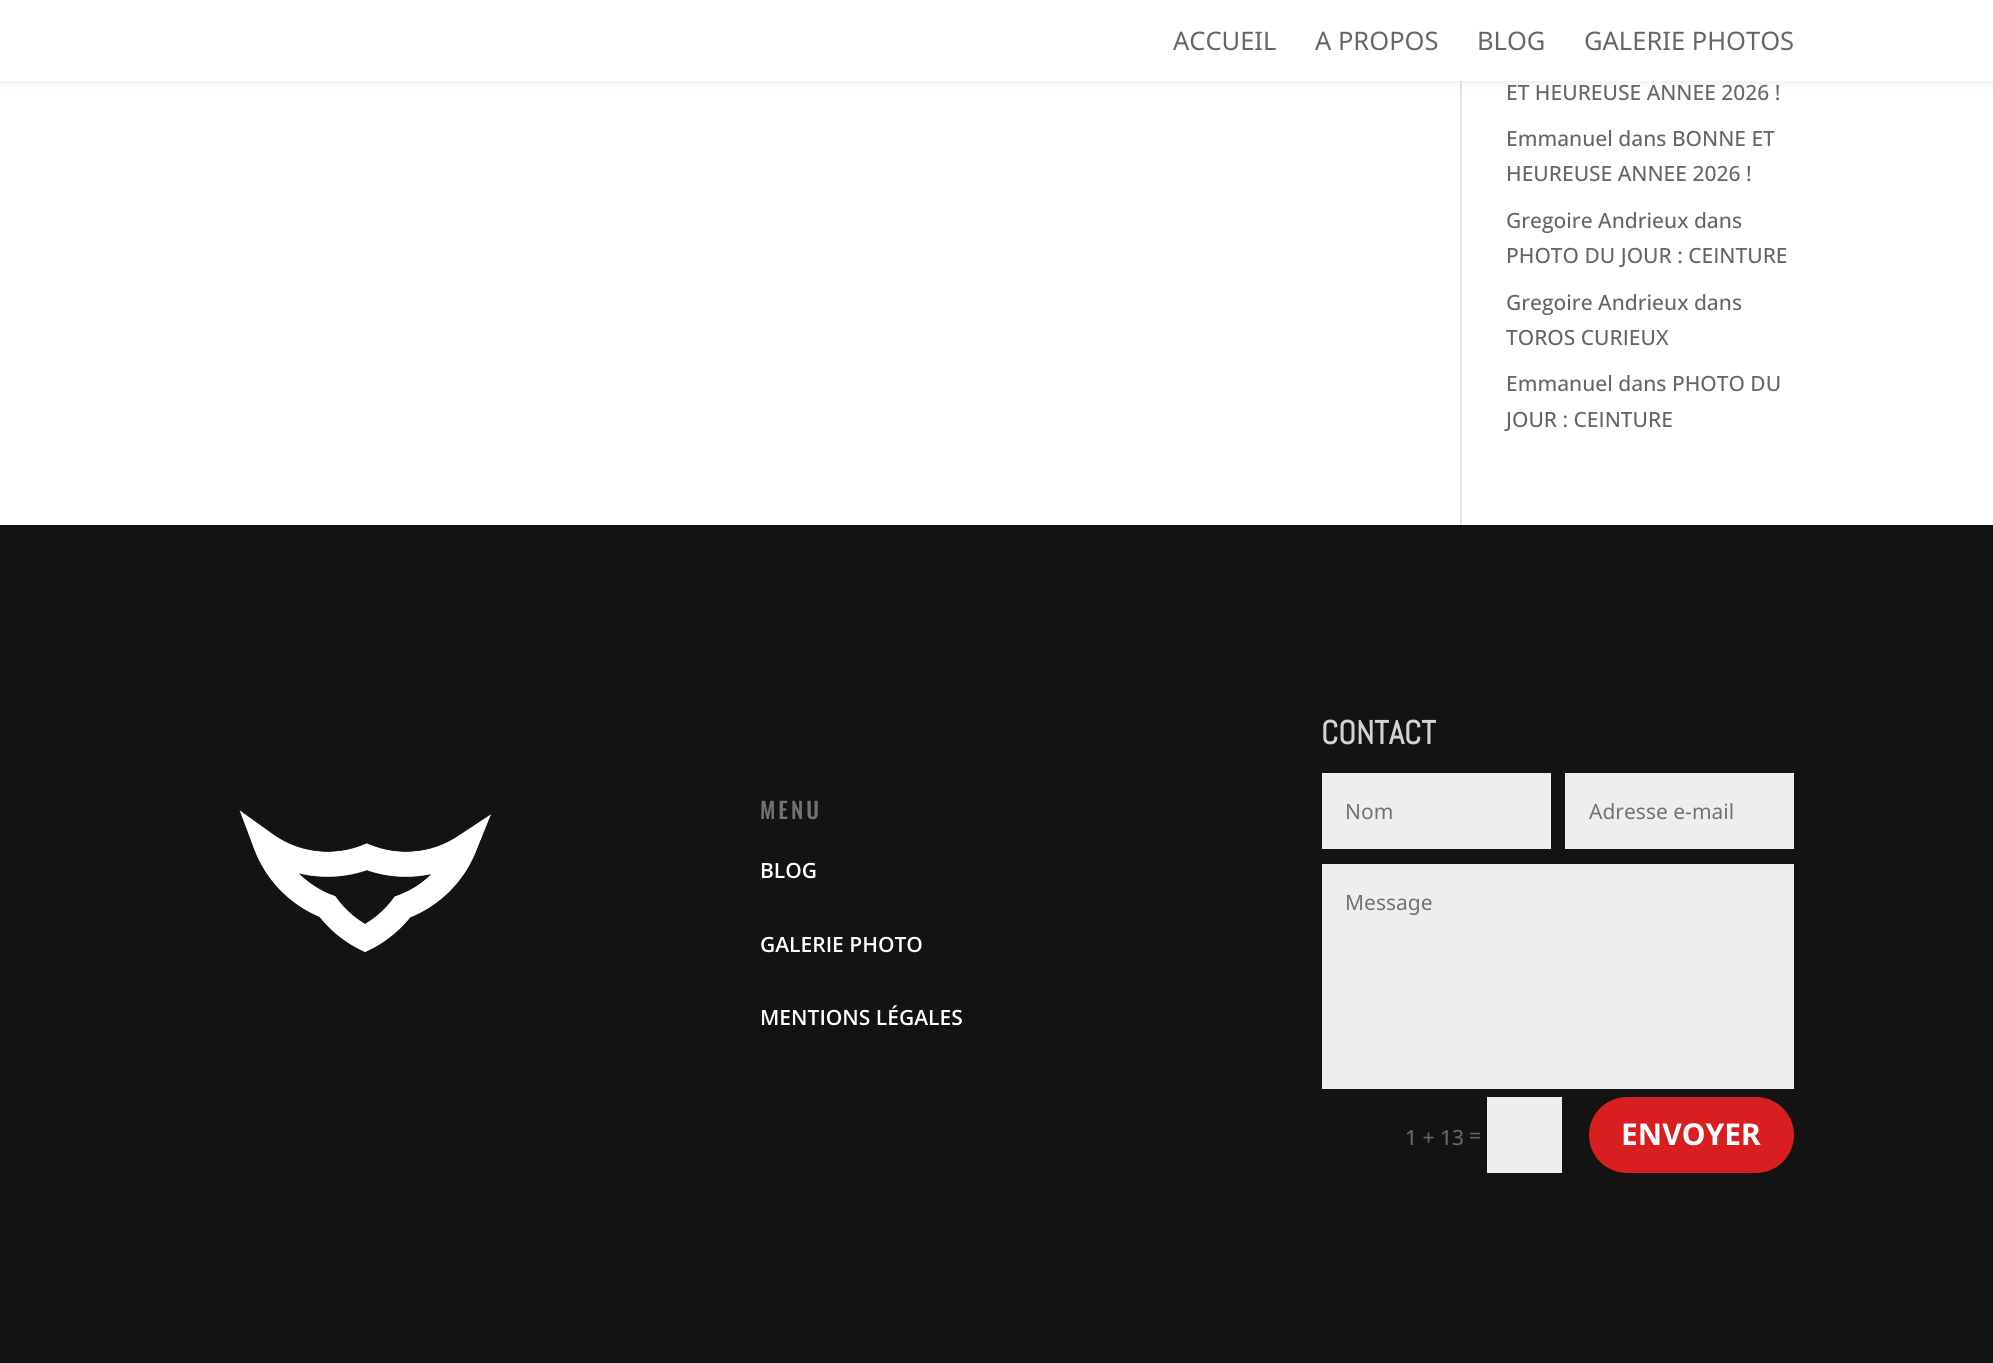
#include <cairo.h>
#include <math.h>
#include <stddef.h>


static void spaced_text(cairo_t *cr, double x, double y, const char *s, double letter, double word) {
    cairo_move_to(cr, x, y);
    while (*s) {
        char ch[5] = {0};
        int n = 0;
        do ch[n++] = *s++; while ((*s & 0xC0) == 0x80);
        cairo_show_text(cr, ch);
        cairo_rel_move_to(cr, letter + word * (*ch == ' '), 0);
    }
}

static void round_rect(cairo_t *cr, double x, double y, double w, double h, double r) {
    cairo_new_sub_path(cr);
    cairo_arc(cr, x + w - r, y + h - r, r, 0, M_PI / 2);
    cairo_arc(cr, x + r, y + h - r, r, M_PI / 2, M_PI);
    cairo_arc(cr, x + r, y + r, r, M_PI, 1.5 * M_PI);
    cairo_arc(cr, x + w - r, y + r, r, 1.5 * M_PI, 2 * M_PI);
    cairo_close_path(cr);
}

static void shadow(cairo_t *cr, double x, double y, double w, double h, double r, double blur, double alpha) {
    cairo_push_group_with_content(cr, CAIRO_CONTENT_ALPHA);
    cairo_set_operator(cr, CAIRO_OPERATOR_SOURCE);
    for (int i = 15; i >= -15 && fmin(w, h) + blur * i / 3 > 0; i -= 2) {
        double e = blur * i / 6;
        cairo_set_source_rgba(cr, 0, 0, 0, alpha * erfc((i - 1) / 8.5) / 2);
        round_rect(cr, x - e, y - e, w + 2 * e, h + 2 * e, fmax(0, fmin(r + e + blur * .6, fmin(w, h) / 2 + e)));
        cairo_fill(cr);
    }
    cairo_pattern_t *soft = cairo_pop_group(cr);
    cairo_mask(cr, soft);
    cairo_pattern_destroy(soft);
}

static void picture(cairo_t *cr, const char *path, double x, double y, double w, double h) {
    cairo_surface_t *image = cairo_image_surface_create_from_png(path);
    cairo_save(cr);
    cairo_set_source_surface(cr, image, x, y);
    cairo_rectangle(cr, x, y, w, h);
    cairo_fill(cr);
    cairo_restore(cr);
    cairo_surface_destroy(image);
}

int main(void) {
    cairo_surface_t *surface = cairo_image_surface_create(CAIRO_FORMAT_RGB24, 1993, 1363);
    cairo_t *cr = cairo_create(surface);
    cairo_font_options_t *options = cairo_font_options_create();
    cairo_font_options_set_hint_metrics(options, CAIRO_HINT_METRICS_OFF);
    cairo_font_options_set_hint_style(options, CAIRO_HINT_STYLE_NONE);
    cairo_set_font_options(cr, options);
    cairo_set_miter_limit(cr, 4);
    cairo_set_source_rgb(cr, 1, 1, 1);
    cairo_paint(cr);
    cairo_set_source_rgb(cr, 0.886, 0.886, 0.886);
    cairo_rectangle(cr, 1460, 81, 2, 444);
    cairo_fill(cr);
    cairo_set_source_rgb(cr, 0, 0, 0);
    shadow(cr, 0, 0, 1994, 81, 0, 5, 0.1);
    cairo_set_source_rgb(cr, 1, 1, 1);
    cairo_rectangle(cr, 0, 0, 1993, 81);
    cairo_fill(cr);
    cairo_select_font_face(cr, "Noto Sans", CAIRO_FONT_SLANT_NORMAL, CAIRO_FONT_WEIGHT_NORMAL);
    cairo_set_font_size(cr, 25.5);
    cairo_set_source_rgb(cr, 0.4, 0.4, 0.4);
    cairo_move_to(cr, 1173, 50);
    cairo_show_text(cr, "ACCUEIL");
    cairo_move_to(cr, 1315, 50);
    cairo_show_text(cr, "A PROPOS");
    cairo_move_to(cr, 1477, 50);
    cairo_show_text(cr, "BLOG");
    cairo_move_to(cr, 1584, 50);
    cairo_show_text(cr, "GALERIE PHOTOS");
    cairo_select_font_face(cr, "Open Sans Medium", CAIRO_FONT_SLANT_NORMAL, CAIRO_FONT_WEIGHT_NORMAL);
    cairo_set_font_size(cr, 21);
    cairo_move_to(cr, 1506, 100);
    cairo_show_text(cr, "ET HEUREUSE ANNEE 2026 !");
    cairo_move_to(cr, 1506, 146);
    cairo_show_text(cr, "Emmanuel dans BONNE ET");
    cairo_move_to(cr, 1506, 181);
    cairo_show_text(cr, "HEUREUSE ANNEE 2026 !");
    cairo_move_to(cr, 1506, 228);
    cairo_show_text(cr, "Gregoire Andrieux dans");
    cairo_move_to(cr, 1506, 263);
    cairo_show_text(cr, "PHOTO DU JOUR : CEINTURE");
    cairo_move_to(cr, 1506, 310);
    cairo_show_text(cr, "Gregoire Andrieux dans");
    cairo_move_to(cr, 1506, 345);
    cairo_show_text(cr, "TOROS CURIEUX");
    cairo_move_to(cr, 1506, 391);
    cairo_show_text(cr, "Emmanuel dans PHOTO DU");
    cairo_move_to(cr, 1506, 427);
    cairo_show_text(cr, "JOUR : CEINTURE");
    cairo_set_source_rgb(cr, 0.078, 0.078, 0.078);
    cairo_rectangle(cr, 0, 525, 1993, 838);
    cairo_fill(cr);
    picture(cr, "img1.png", 239, 810, 252, 142);
    cairo_select_font_face(cr, "Oswald Medium", CAIRO_FONT_SLANT_NORMAL, CAIRO_FONT_WEIGHT_NORMAL);
    cairo_set_font_size(cr, 22.5);
    cairo_set_source_rgb(cr, 0.447, 0.447, 0.447);
    spaced_text(cr, 760, 819, "MENU", 3, 0);
    cairo_select_font_face(cr, "Open Sans SemiBold", CAIRO_FONT_SLANT_NORMAL, CAIRO_FONT_WEIGHT_NORMAL);
    cairo_set_font_size(cr, 21);
    cairo_set_source_rgb(cr, 1, 1, 1);
    cairo_move_to(cr, 760, 878);
    cairo_show_text(cr, "BLOG");
    cairo_move_to(cr, 760, 952);
    cairo_show_text(cr, "GALERIE PHOTO");
    cairo_move_to(cr, 760, 1025);
    cairo_show_text(cr, "MENTIONS LÉGALES");
    cairo_select_font_face(cr, "Abel", CAIRO_FONT_SLANT_NORMAL, CAIRO_FONT_WEIGHT_BOLD);
    cairo_set_font_size(cr, 33);
    cairo_set_source_rgb(cr, 0.827, 0.827, 0.827);
    cairo_move_to(cr, 1321, 744);
    cairo_show_text(cr, "CONTACT");
    cairo_set_source_rgb(cr, 0.933, 0.933, 0.933);
    cairo_rectangle(cr, 1322, 773, 229, 76);
    cairo_fill(cr);
    cairo_select_font_face(cr, "Noto Sans", CAIRO_FONT_SLANT_NORMAL, CAIRO_FONT_WEIGHT_NORMAL);
    cairo_set_font_size(cr, 21);
    cairo_set_source_rgb(cr, 0.447, 0.447, 0.447);
    cairo_move_to(cr, 1345, 819);
    cairo_show_text(cr, "Nom");
    cairo_set_source_rgb(cr, 0.933, 0.933, 0.933);
    cairo_rectangle(cr, 1565, 773, 229, 76);
    cairo_fill(cr);
    cairo_set_source_rgb(cr, 0.447, 0.447, 0.447);
    cairo_move_to(cr, 1589, 819);
    cairo_show_text(cr, "Adresse e-mail");
    cairo_set_source_rgb(cr, 0.933, 0.933, 0.933);
    cairo_rectangle(cr, 1322, 864, 472, 225);
    cairo_fill(cr);
    cairo_set_source_rgb(cr, 0.447, 0.447, 0.447);
    cairo_move_to(cr, 1345, 910);
    cairo_show_text(cr, "Message");
    cairo_select_font_face(cr, "Open Sans Medium", CAIRO_FONT_SLANT_NORMAL, CAIRO_FONT_WEIGHT_NORMAL);
    cairo_set_source_rgb(cr, 0.4, 0.4, 0.4);
    cairo_move_to(cr, 1405, 1145);
    cairo_show_text(cr, "1 + 13");
    cairo_move_to(cr, 1469, 1143);
    cairo_show_text(cr, "=");
    cairo_set_source_rgb(cr, 0.933, 0.933, 0.933);
    cairo_rectangle(cr, 1487, 1097, 75, 76);
    cairo_fill(cr);
    cairo_set_source_rgb(cr, 0.847, 0.118, 0.118);
    round_rect(cr, 1590.5, 1098.5, 202, 73, 36.5);
    cairo_fill_preserve(cr);
    cairo_set_line_width(cr, 3);
    cairo_stroke(cr);
    cairo_select_font_face(cr, "Noto Sans", CAIRO_FONT_SLANT_NORMAL, CAIRO_FONT_WEIGHT_BOLD);
    cairo_set_font_size(cr, 30);
    cairo_set_source_rgb(cr, 1, 1, 1);
    cairo_move_to(cr, 1621, 1145);
    cairo_show_text(cr, "ENVOYER");
    cairo_surface_write_to_png(surface, "page.png");
    cairo_font_options_destroy(options);
    cairo_destroy(cr);
    cairo_surface_destroy(surface);
    return 0;
}
